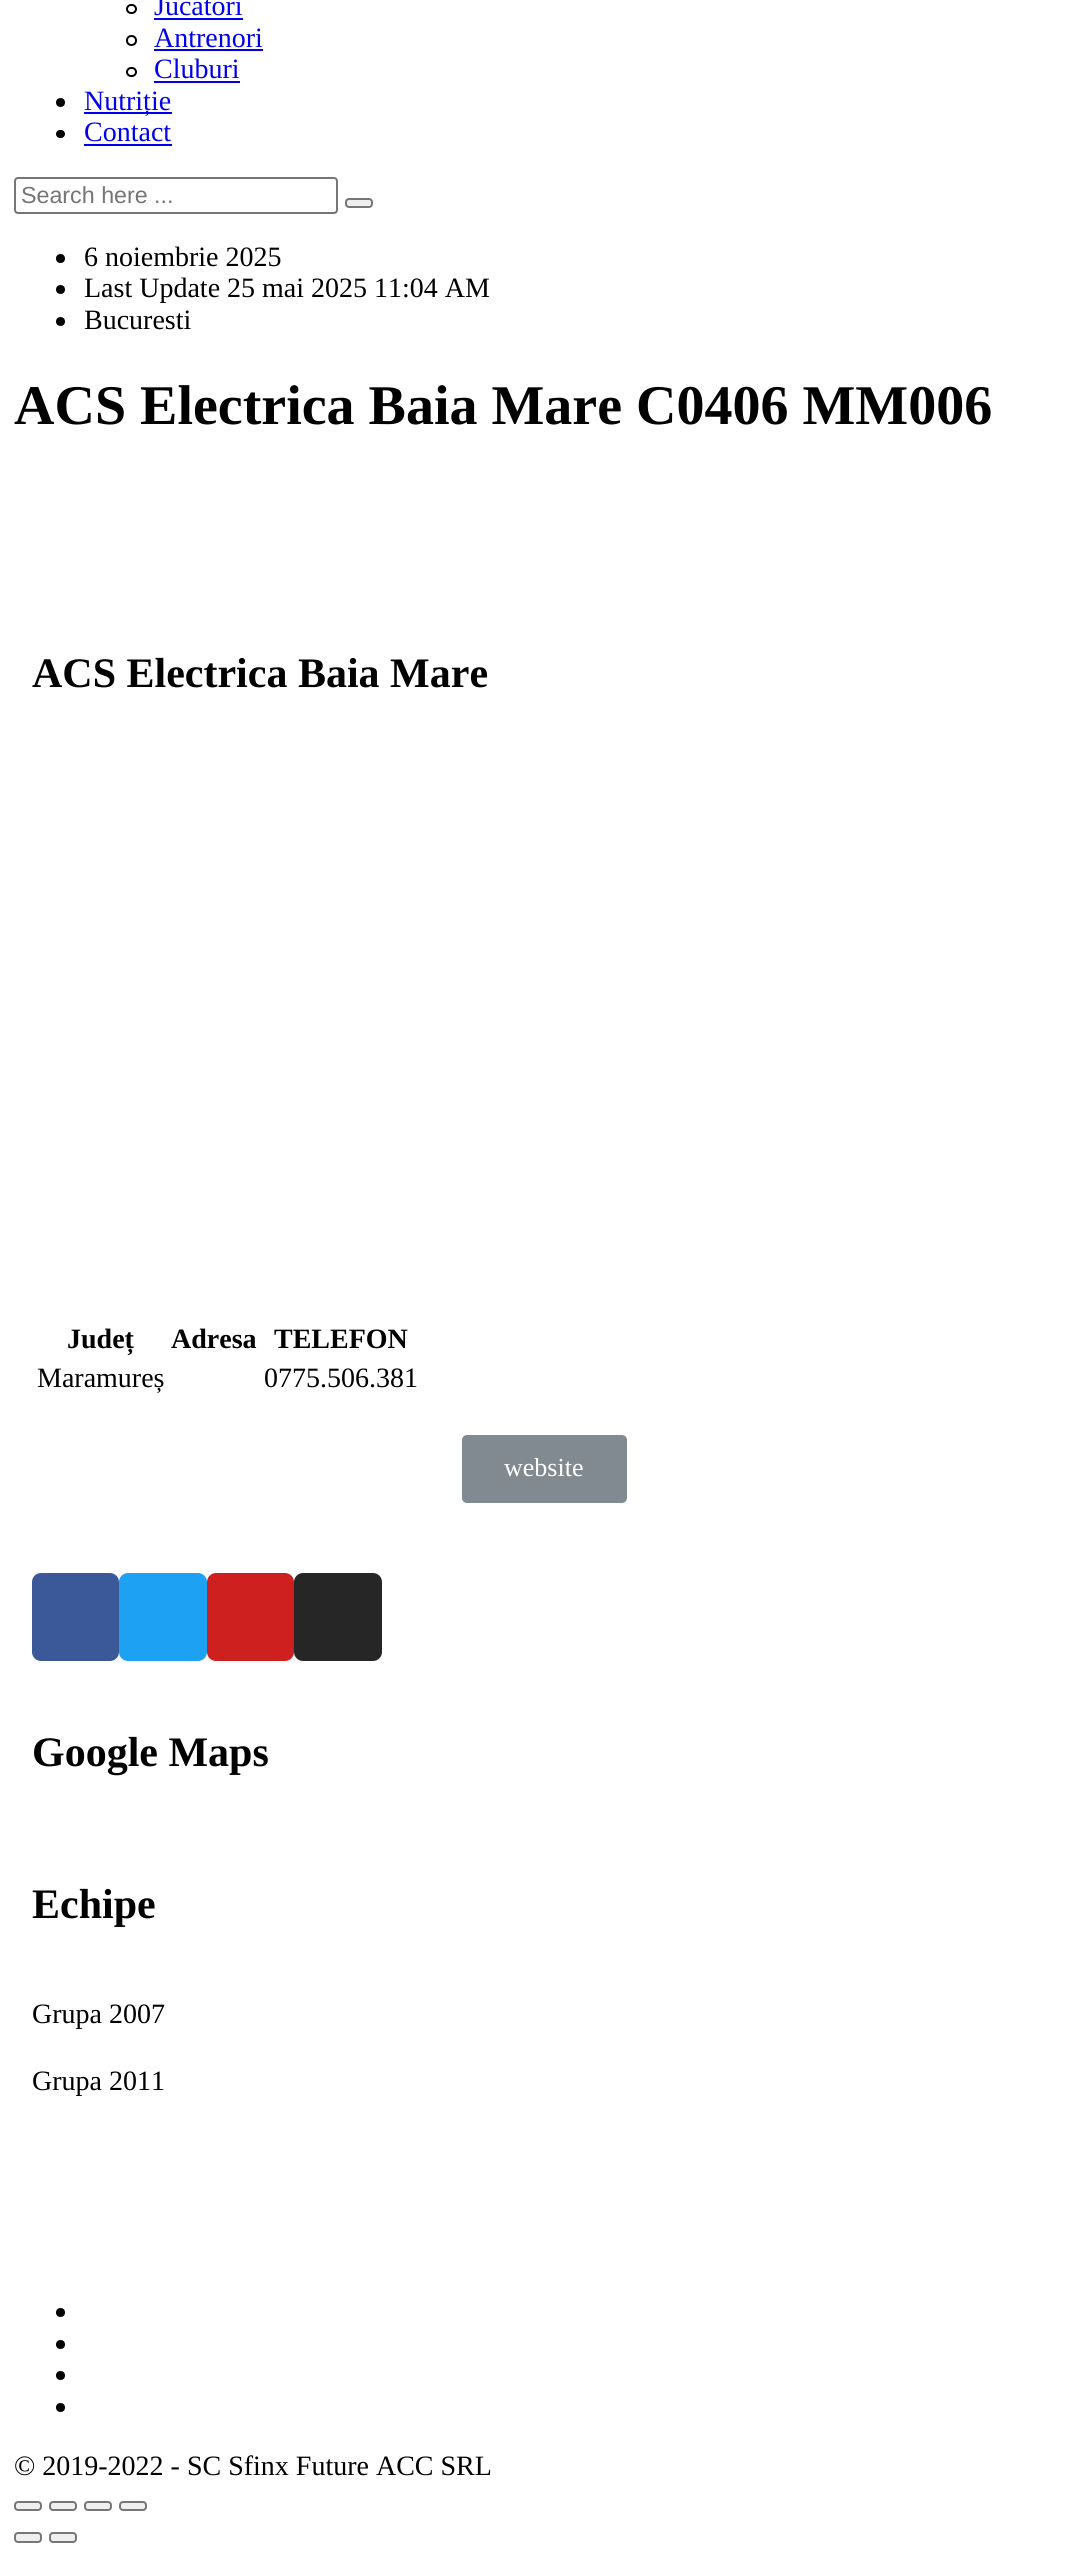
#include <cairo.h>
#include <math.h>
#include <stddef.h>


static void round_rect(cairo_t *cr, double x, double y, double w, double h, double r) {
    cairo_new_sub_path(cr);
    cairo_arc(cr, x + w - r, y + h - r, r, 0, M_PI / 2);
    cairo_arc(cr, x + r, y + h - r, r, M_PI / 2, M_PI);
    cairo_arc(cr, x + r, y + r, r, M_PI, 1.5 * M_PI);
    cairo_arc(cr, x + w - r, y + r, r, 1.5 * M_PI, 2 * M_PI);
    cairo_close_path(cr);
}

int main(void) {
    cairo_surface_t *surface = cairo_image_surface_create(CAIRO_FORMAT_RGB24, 1087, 2558);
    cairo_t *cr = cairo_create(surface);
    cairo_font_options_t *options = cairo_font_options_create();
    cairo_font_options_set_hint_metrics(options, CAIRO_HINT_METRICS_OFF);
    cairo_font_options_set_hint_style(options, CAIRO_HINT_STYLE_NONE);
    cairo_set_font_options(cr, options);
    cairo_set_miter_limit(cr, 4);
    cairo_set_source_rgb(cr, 1, 1, 1);
    cairo_paint(cr);
    round_rect(cr, 127, 5, 9, 8, 4);
    cairo_set_source_rgb(cr, 0, 0, 0);
    cairo_stroke(cr);
    cairo_select_font_face(cr, "Liberation Serif", CAIRO_FONT_SLANT_NORMAL, CAIRO_FONT_WEIGHT_NORMAL);
    cairo_set_font_size(cr, 28);
    cairo_set_source_rgb(cr, 0, 0, 0.933);
    cairo_move_to(cr, 154, 15);
    cairo_show_text(cr, "Jucători");
    cairo_rectangle(cr, 154, 18, 89, 2);
    cairo_fill(cr);
    cairo_arc(cr, 131.5, 40.5, 4.5, 0, 2 * M_PI);
    cairo_set_source_rgb(cr, 0, 0, 0);
    cairo_stroke(cr);
    cairo_set_source_rgb(cr, 0, 0, 0.933);
    cairo_move_to(cr, 154, 47);
    cairo_show_text(cr, "Antrenori");
    cairo_rectangle(cr, 154, 49, 109, 2);
    cairo_fill(cr);
    round_rect(cr, 127, 68, 9, 8, 4);
    cairo_set_source_rgb(cr, 0, 0, 0);
    cairo_stroke(cr);
    cairo_set_source_rgb(cr, 0, 0, 0.933);
    cairo_move_to(cr, 154, 78);
    cairo_show_text(cr, "Cluburi");
    cairo_rectangle(cr, 154, 81, 86, 2);
    cairo_fill(cr);
    cairo_set_source_rgb(cr, 0, 0, 0);
    cairo_arc(cr, 60.5, 102.5, 4.5, 0, 2 * M_PI);
    cairo_fill(cr);
    cairo_set_source_rgb(cr, 0, 0, 0.933);
    cairo_rectangle(cr, 84, 112, 88, 2);
    cairo_fill(cr);
    cairo_move_to(cr, 84, 110);
    cairo_show_text(cr, "Nutriție");
    cairo_set_source_rgb(cr, 0, 0, 0);
    round_rect(cr, 56, 130, 9, 8, 4);
    cairo_fill(cr);
    cairo_set_source_rgb(cr, 0, 0, 0.933);
    cairo_move_to(cr, 84, 141);
    cairo_show_text(cr, "Contact");
    cairo_rectangle(cr, 84, 144, 88, 2);
    cairo_fill(cr);
    round_rect(cr, 15, 178, 322, 35, 3);
    cairo_set_source_rgb(cr, 0.463, 0.463, 0.463);
    cairo_stroke(cr);
    cairo_select_font_face(cr, "Liberation Sans", CAIRO_FONT_SLANT_NORMAL, CAIRO_FONT_WEIGHT_NORMAL);
    cairo_set_font_size(cr, 23.25);
    cairo_set_source_rgb(cr, 0.459, 0.459, 0.459);
    cairo_move_to(cr, 21, 203);
    cairo_show_text(cr, "Search here ...");
    cairo_set_source_rgb(cr, 0.937, 0.937, 0.937);
    round_rect(cr, 346, 199, 26, 8, 3);
    cairo_fill_preserve(cr);
    cairo_set_source_rgb(cr, 0.463, 0.463, 0.463);
    cairo_stroke(cr);
    cairo_set_source_rgb(cr, 0, 0, 0);
    cairo_arc(cr, 60.5, 258.5, 4.5, 0, 2 * M_PI);
    cairo_fill(cr);
    cairo_select_font_face(cr, "Liberation Serif", CAIRO_FONT_SLANT_NORMAL, CAIRO_FONT_WEIGHT_NORMAL);
    cairo_set_font_size(cr, 28);
    cairo_move_to(cr, 84, 266);
    cairo_show_text(cr, "6 noiembrie 2025");
    cairo_new_path(cr);
    cairo_arc(cr, 60.5, 289.5, 4.5, 0, 2 * M_PI);
    cairo_fill(cr);
    cairo_move_to(cr, 84, 297);
    cairo_show_text(cr, "Last Update 25 mai 2025 11:04 AM");
    cairo_new_path(cr);
    cairo_arc(cr, 60.5, 321.5, 4.5, 0, 2 * M_PI);
    cairo_fill(cr);
    cairo_move_to(cr, 84, 329);
    cairo_show_text(cr, "Bucuresti");
    cairo_select_font_face(cr, "Liberation Serif", CAIRO_FONT_SLANT_NORMAL, CAIRO_FONT_WEIGHT_BOLD);
    cairo_set_font_size(cr, 56);
    cairo_move_to(cr, 14, 424);
    cairo_show_text(cr, "ACS Electrica Baia Mare C0406 MM006");
    cairo_set_font_size(cr, 42);
    cairo_move_to(cr, 32, 687);
    cairo_show_text(cr, "ACS Electrica Baia Mare");
    cairo_set_font_size(cr, 28);
    cairo_move_to(cr, 67, 1348);
    cairo_show_text(cr, "Județ");
    cairo_move_to(cr, 171, 1348);
    cairo_show_text(cr, "Adresa");
    cairo_move_to(cr, 274, 1348);
    cairo_show_text(cr, "TELEFON");
    cairo_select_font_face(cr, "Liberation Serif", CAIRO_FONT_SLANT_NORMAL, CAIRO_FONT_WEIGHT_NORMAL);
    cairo_move_to(cr, 37, 1387);
    cairo_show_text(cr, "Maramureș");
    cairo_move_to(cr, 264, 1387);
    cairo_show_text(cr, "0775.506.381");
    cairo_set_source_rgb(cr, 0.506, 0.541, 0.569);
    round_rect(cr, 462, 1435, 165, 68, 5);
    cairo_fill(cr);
    cairo_set_font_size(cr, 26);
    cairo_set_source_rgb(cr, 1, 1, 1);
    cairo_move_to(cr, 504, 1476);
    cairo_show_text(cr, "website");
    cairo_set_source_rgb(cr, 0.231, 0.349, 0.596);
    round_rect(cr, 32, 1573, 87, 88, 9);
    cairo_fill(cr);
    cairo_set_source_rgb(cr, 0.114, 0.631, 0.949);
    round_rect(cr, 119, 1573, 88, 88, 9);
    cairo_fill(cr);
    cairo_set_source_rgb(cr, 0.804, 0.125, 0.122);
    round_rect(cr, 207, 1573, 87, 88, 9);
    cairo_fill(cr);
    cairo_set_source_rgb(cr, 0.149, 0.149, 0.149);
    round_rect(cr, 294, 1573, 88, 88, 9);
    cairo_fill(cr);
    cairo_select_font_face(cr, "Liberation Serif", CAIRO_FONT_SLANT_NORMAL, CAIRO_FONT_WEIGHT_BOLD);
    cairo_set_font_size(cr, 42);
    cairo_set_source_rgb(cr, 0, 0, 0);
    cairo_move_to(cr, 32, 1766);
    cairo_show_text(cr, "Google Maps");
    cairo_move_to(cr, 32, 1918);
    cairo_show_text(cr, "Echipe");
    cairo_select_font_face(cr, "Liberation Serif", CAIRO_FONT_SLANT_NORMAL, CAIRO_FONT_WEIGHT_NORMAL);
    cairo_set_font_size(cr, 28);
    cairo_move_to(cr, 32, 2023);
    cairo_show_text(cr, "Grupa 2007");
    cairo_move_to(cr, 32, 2090);
    cairo_show_text(cr, "Grupa 2011");
    cairo_new_path(cr);
    cairo_arc(cr, 60.5, 2312.5, 4.5, 0, 2 * M_PI);
    cairo_fill(cr);
    cairo_arc(cr, 60.5, 2344.5, 4.5, 0, 2 * M_PI);
    cairo_fill(cr);
    cairo_arc(cr, 60.5, 2375.5, 4.5, 0, 2 * M_PI);
    cairo_fill(cr);
    cairo_arc(cr, 60.5, 2407.5, 4.5, 0, 2 * M_PI);
    cairo_fill(cr);
    cairo_move_to(cr, 14, 2475);
    cairo_show_text(cr, "© 2019-2022 - SC Sfinx Future ACC SRL");
    cairo_set_source_rgb(cr, 0.937, 0.937, 0.937);
    round_rect(cr, 15, 2502, 26, 8, 3);
    cairo_fill_preserve(cr);
    cairo_set_source_rgb(cr, 0.463, 0.463, 0.463);
    cairo_stroke(cr);
    cairo_set_source_rgb(cr, 0.937, 0.937, 0.937);
    round_rect(cr, 50, 2502, 26, 8, 3);
    cairo_fill_preserve(cr);
    cairo_set_source_rgb(cr, 0.463, 0.463, 0.463);
    cairo_stroke(cr);
    cairo_set_source_rgb(cr, 0.937, 0.937, 0.937);
    round_rect(cr, 85, 2502, 26, 8, 3);
    cairo_fill_preserve(cr);
    cairo_set_source_rgb(cr, 0.463, 0.463, 0.463);
    cairo_stroke(cr);
    cairo_set_source_rgb(cr, 0.937, 0.937, 0.937);
    round_rect(cr, 120, 2502, 26, 8, 3);
    cairo_fill_preserve(cr);
    cairo_set_source_rgb(cr, 0.463, 0.463, 0.463);
    cairo_stroke(cr);
    cairo_set_source_rgb(cr, 0.937, 0.937, 0.937);
    round_rect(cr, 15, 2533, 26, 9, 3);
    cairo_fill_preserve(cr);
    cairo_set_source_rgb(cr, 0.463, 0.463, 0.463);
    cairo_stroke(cr);
    cairo_set_source_rgb(cr, 0.937, 0.937, 0.937);
    round_rect(cr, 50, 2533, 26, 9, 3);
    cairo_fill_preserve(cr);
    cairo_set_source_rgb(cr, 0.463, 0.463, 0.463);
    cairo_stroke(cr);
    cairo_surface_write_to_png(surface, "page.png");
    cairo_font_options_destroy(options);
    cairo_destroy(cr);
    cairo_surface_destroy(surface);
    return 0;
}
